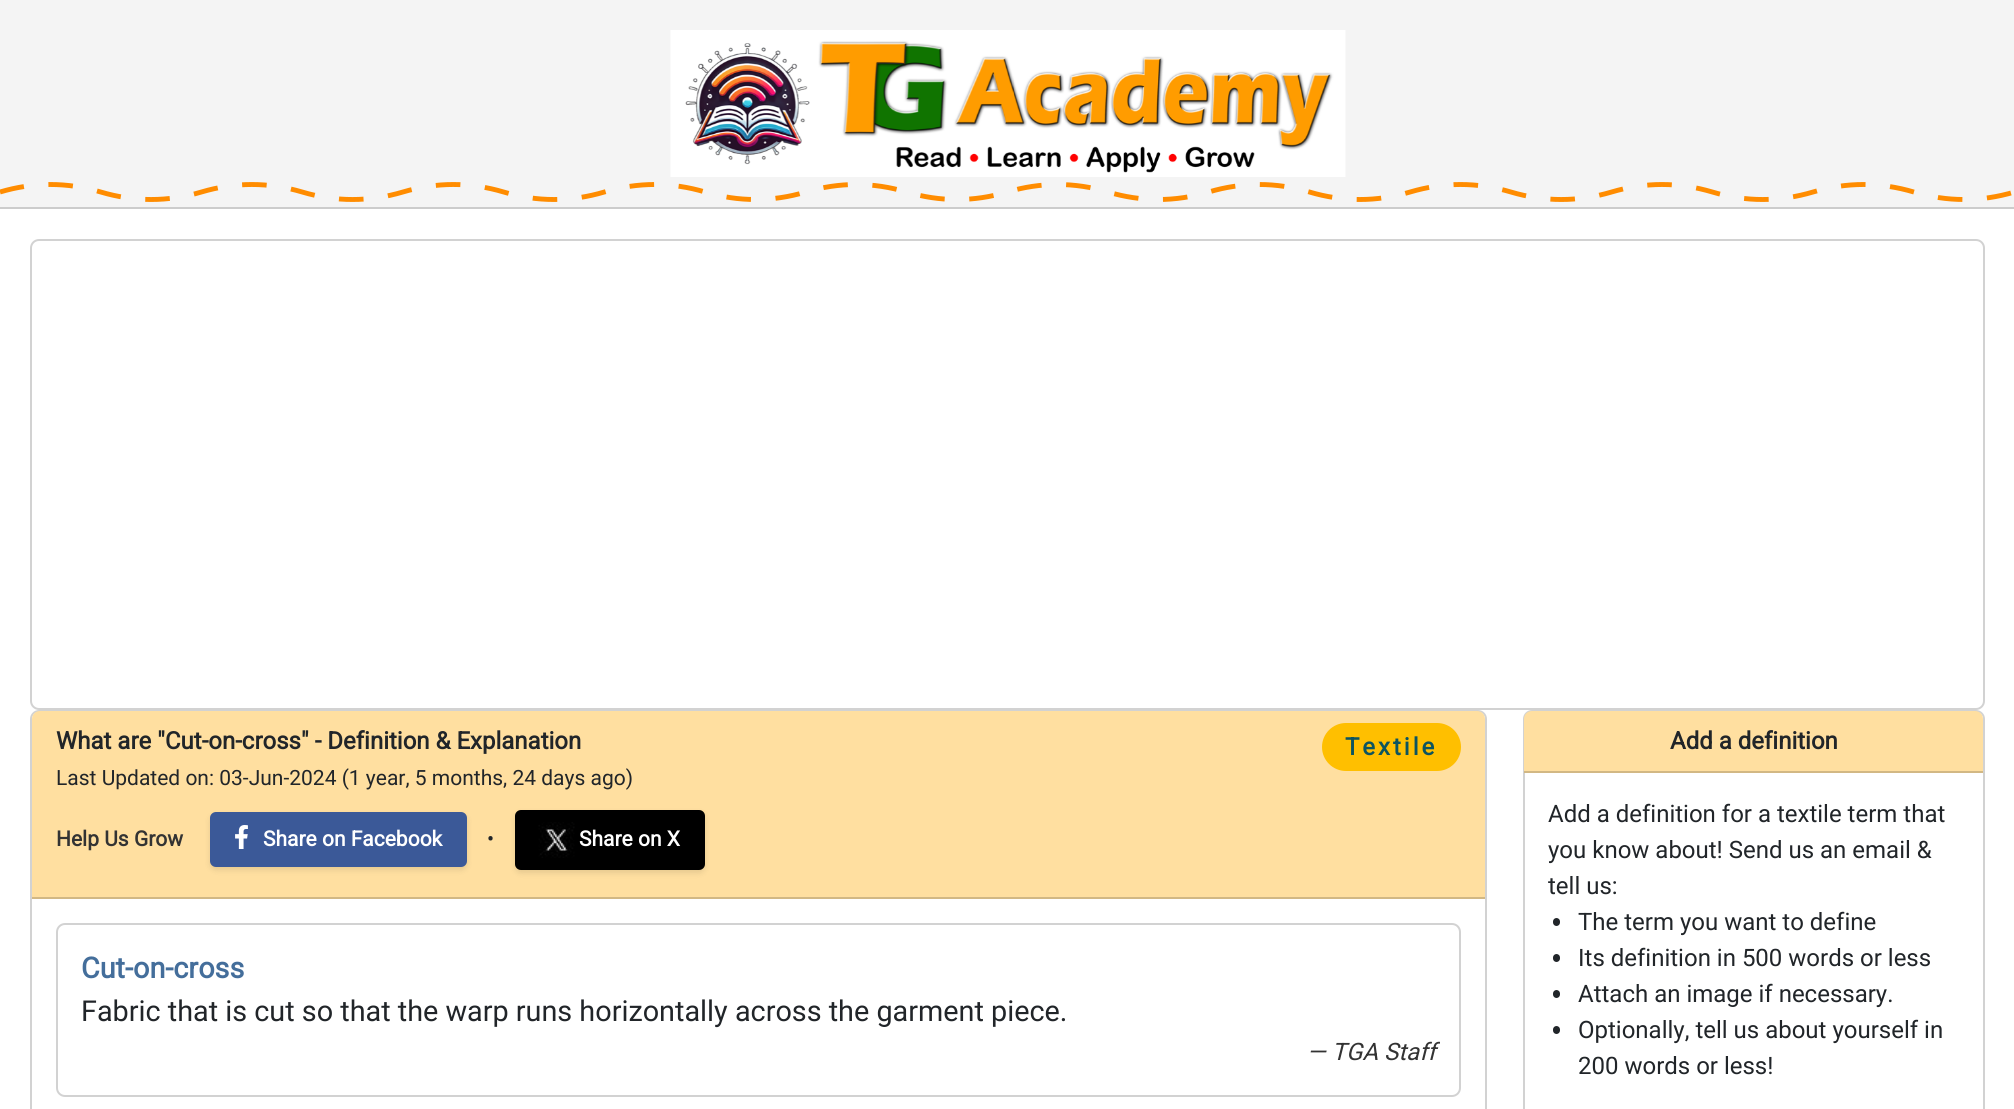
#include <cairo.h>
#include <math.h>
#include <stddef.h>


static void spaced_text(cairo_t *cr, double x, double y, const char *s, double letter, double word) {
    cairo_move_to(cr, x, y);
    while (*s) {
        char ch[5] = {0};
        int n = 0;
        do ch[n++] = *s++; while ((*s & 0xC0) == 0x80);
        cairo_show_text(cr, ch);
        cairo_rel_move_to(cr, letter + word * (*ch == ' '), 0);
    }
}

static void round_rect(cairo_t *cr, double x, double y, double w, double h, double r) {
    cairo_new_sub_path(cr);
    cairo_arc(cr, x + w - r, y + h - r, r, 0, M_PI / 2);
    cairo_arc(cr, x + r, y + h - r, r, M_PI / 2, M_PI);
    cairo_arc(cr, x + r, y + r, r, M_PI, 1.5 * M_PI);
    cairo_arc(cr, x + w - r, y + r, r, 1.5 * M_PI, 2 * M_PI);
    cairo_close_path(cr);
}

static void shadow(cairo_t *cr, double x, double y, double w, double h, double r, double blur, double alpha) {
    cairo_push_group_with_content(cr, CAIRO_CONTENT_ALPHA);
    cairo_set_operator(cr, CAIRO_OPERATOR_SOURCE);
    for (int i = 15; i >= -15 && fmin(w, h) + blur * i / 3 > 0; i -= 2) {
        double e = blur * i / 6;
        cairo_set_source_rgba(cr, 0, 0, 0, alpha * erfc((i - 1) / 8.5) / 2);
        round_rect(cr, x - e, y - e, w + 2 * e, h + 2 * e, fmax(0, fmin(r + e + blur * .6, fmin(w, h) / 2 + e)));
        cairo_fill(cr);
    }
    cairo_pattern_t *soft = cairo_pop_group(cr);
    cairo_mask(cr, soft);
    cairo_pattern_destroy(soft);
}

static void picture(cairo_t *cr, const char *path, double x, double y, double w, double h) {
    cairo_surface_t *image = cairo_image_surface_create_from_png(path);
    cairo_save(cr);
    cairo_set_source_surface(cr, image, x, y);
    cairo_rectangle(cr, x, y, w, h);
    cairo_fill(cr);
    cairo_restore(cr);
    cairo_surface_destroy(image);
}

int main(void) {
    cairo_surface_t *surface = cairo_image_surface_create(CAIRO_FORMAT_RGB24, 2014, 1109);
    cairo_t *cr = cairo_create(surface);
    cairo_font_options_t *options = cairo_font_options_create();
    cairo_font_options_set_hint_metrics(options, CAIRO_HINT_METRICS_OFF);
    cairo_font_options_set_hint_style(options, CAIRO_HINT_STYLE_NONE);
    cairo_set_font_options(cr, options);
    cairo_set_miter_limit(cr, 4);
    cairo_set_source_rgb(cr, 1, 1, 1);
    cairo_paint(cr);
    cairo_set_source_rgb(cr, 0.957, 0.957, 0.957);
    cairo_rectangle(cr, 0, 0, 2014, 207);
    cairo_fill(cr);
    cairo_set_source_rgb(cr, 0.8, 0.8, 0.8);
    cairo_rectangle(cr, 0, 207, 2014, 2);
    cairo_fill(cr);
    picture(cr, "img1.png", 670, 30, 676, 147);
    picture(cr, "img2.png", 0, 182, 2012, 20);
    round_rect(cr, 31, 240, 1953, 469, 8);
    cairo_set_source_rgb(cr, 0.824, 0.824, 0.824);
    cairo_stroke(cr);
    round_rect(cr, 31, 711, 1455, 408, 8);
    cairo_stroke(cr);
    cairo_set_source_rgb(cr, 1, 0.875, 0.627);
    cairo_new_path(cr);
    cairo_move_to(cr, 40, 711);
    cairo_line_to(cr, 1477, 711);
    cairo_curve_to(cr, 1481.5, 711, 1485, 714.5, 1485, 719);
    cairo_line_to(cr, 1485, 899);
    cairo_line_to(cr, 32, 899);
    cairo_line_to(cr, 32, 719);
    cairo_curve_to(cr, 32, 714.5, 35.5, 711, 40, 711);
    cairo_close_path(cr);
    cairo_fill(cr);
    cairo_set_source_rgb(cr, 0.824, 0.722, 0.518);
    cairo_rectangle(cr, 32, 897, 1453, 2);
    cairo_fill(cr);
    cairo_select_font_face(cr, "Roboto", CAIRO_FONT_SLANT_NORMAL, CAIRO_FONT_WEIGHT_BOLD);
    cairo_set_font_size(cr, 24);
    cairo_set_source_rgb(cr, 0.129, 0.145, 0.161);
    cairo_move_to(cr, 56, 749);
    cairo_show_text(cr, "What are \"Cut-on-cross\" - Definition & Explanation");
    cairo_set_source_rgb(cr, 1, 0.749, 0);
    round_rect(cr, 1322, 723, 139, 48, 24);
    cairo_fill(cr);
    cairo_set_source_rgb(cr, 0.047, 0.329, 0.376);
    spaced_text(cr, 1345, 755, "Textile", 3, 0);
    cairo_select_font_face(cr, "Roboto", CAIRO_FONT_SLANT_NORMAL, CAIRO_FONT_WEIGHT_NORMAL);
    cairo_set_font_size(cr, 21);
    cairo_set_source_rgb(cr, 0.129, 0.145, 0.161);
    cairo_move_to(cr, 56, 785);
    cairo_show_text(cr, "Last Updated on: 03-Jun-2024 (1 year, 5 months, 24 days ago)");
    cairo_select_font_face(cr, "Roboto", CAIRO_FONT_SLANT_NORMAL, CAIRO_FONT_WEIGHT_BOLD);
    cairo_set_source_rgb(cr, 0.2, 0.2, 0.2);
    cairo_move_to(cr, 56, 846);
    cairo_show_text(cr, "Help Us Grow");
    cairo_set_source_rgb(cr, 0, 0, 0);
    shadow(cr, 210, 815, 257, 55, 6, 3, 0.1);
    cairo_set_source_rgb(cr, 0.231, 0.349, 0.596);
    round_rect(cr, 210, 812, 257, 55, 6);
    cairo_fill(cr);
    picture(cr, "img3.png", 235, 825, 13, 24);
    cairo_set_source_rgb(cr, 1, 1, 1);
    cairo_move_to(cr, 263, 846);
    cairo_show_text(cr, "Share on Facebook");
    cairo_select_font_face(cr, "Roboto", CAIRO_FONT_SLANT_NORMAL, CAIRO_FONT_WEIGHT_NORMAL);
    cairo_set_source_rgb(cr, 0.129, 0.145, 0.161);
    cairo_move_to(cr, 487, 846);
    cairo_show_text(cr, "•");
    cairo_set_source_rgb(cr, 0, 0, 0);
    shadow(cr, 515, 813, 190, 60, 6, 3, 0.1);
    cairo_set_source_rgb(cr, 0, 0, 0);
    round_rect(cr, 515, 810, 190, 60, 6);
    cairo_fill(cr);
    picture(cr, "img4.png", 538, 822, 37, 36);
    cairo_select_font_face(cr, "Roboto", CAIRO_FONT_SLANT_NORMAL, CAIRO_FONT_WEIGHT_BOLD);
    cairo_set_source_rgb(cr, 1, 1, 1);
    cairo_move_to(cr, 579, 846);
    cairo_show_text(cr, "Share on X");
    round_rect(cr, 57, 924, 1403, 172, 8);
    cairo_set_source_rgb(cr, 0.824, 0.824, 0.824);
    cairo_stroke(cr);
    cairo_set_font_size(cr, 28.8);
    cairo_set_source_rgb(cr, 0.267, 0.431, 0.608);
    cairo_move_to(cr, 81, 978);
    cairo_show_text(cr, "Cut-on-cross");
    cairo_select_font_face(cr, "Roboto", CAIRO_FONT_SLANT_NORMAL, CAIRO_FONT_WEIGHT_NORMAL);
    cairo_set_source_rgb(cr, 0.129, 0.145, 0.161);
    cairo_move_to(cr, 81, 1021);
    cairo_show_text(cr, "Fabric that is cut so that the warp runs horizontally across the garment piece.");
    cairo_select_font_face(cr, "Roboto", CAIRO_FONT_SLANT_ITALIC, CAIRO_FONT_WEIGHT_NORMAL);
    cairo_set_font_size(cr, 24);
    cairo_set_source_rgb(cr, 0.2, 0.2, 0.2);
    cairo_move_to(cr, 1307, 1060);
    cairo_show_text(cr, "— TGA Staff");
    round_rect(cr, 1524, 711, 460, 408, 8);
    cairo_set_source_rgb(cr, 0.824, 0.824, 0.824);
    cairo_stroke(cr);
    cairo_set_source_rgb(cr, 1, 0.875, 0.627);
    cairo_new_path(cr);
    cairo_move_to(cr, 1532, 711);
    cairo_line_to(cr, 1975, 711);
    cairo_curve_to(cr, 1979.5, 711, 1983, 714.5, 1983, 719);
    cairo_line_to(cr, 1983, 773);
    cairo_line_to(cr, 1524, 773);
    cairo_line_to(cr, 1524, 719);
    cairo_curve_to(cr, 1524, 714.5, 1527.5, 711, 1532, 711);
    cairo_close_path(cr);
    cairo_fill(cr);
    cairo_set_source_rgb(cr, 0.824, 0.722, 0.518);
    cairo_rectangle(cr, 1524, 771, 459, 2);
    cairo_fill(cr);
    cairo_select_font_face(cr, "Roboto", CAIRO_FONT_SLANT_NORMAL, CAIRO_FONT_WEIGHT_BOLD);
    cairo_set_source_rgb(cr, 0.129, 0.145, 0.161);
    cairo_move_to(cr, 1670, 749);
    cairo_show_text(cr, "Add a definition");
    cairo_select_font_face(cr, "Roboto", CAIRO_FONT_SLANT_NORMAL, CAIRO_FONT_WEIGHT_NORMAL);
    cairo_move_to(cr, 1548, 822);
    cairo_show_text(cr, "Add a definition for a textile term that");
    cairo_move_to(cr, 1548, 858);
    cairo_show_text(cr, "you know about! Send us an email &");
    cairo_move_to(cr, 1548, 894);
    cairo_show_text(cr, "tell us:");
    round_rect(cr, 1553, 918, 7, 8, 3.5);
    cairo_fill(cr);
    cairo_move_to(cr, 1578, 930);
    cairo_show_text(cr, "The term you want to define");
    round_rect(cr, 1553, 954, 7, 8, 3.5);
    cairo_fill(cr);
    cairo_move_to(cr, 1578, 966);
    cairo_show_text(cr, "Its definition in 500 words or less");
    round_rect(cr, 1553, 990, 7, 8, 3.5);
    cairo_fill(cr);
    cairo_move_to(cr, 1578, 1002);
    cairo_show_text(cr, "Attach an image if necessary.");
    round_rect(cr, 1553, 1026, 7, 8, 3.5);
    cairo_fill(cr);
    cairo_move_to(cr, 1578, 1038);
    cairo_show_text(cr, "Optionally, tell us about yourself in");
    cairo_move_to(cr, 1578, 1074);
    cairo_show_text(cr, "200 words or less!");
    cairo_surface_write_to_png(surface, "page.png");
    cairo_font_options_destroy(options);
    cairo_destroy(cr);
    cairo_surface_destroy(surface);
    return 0;
}
